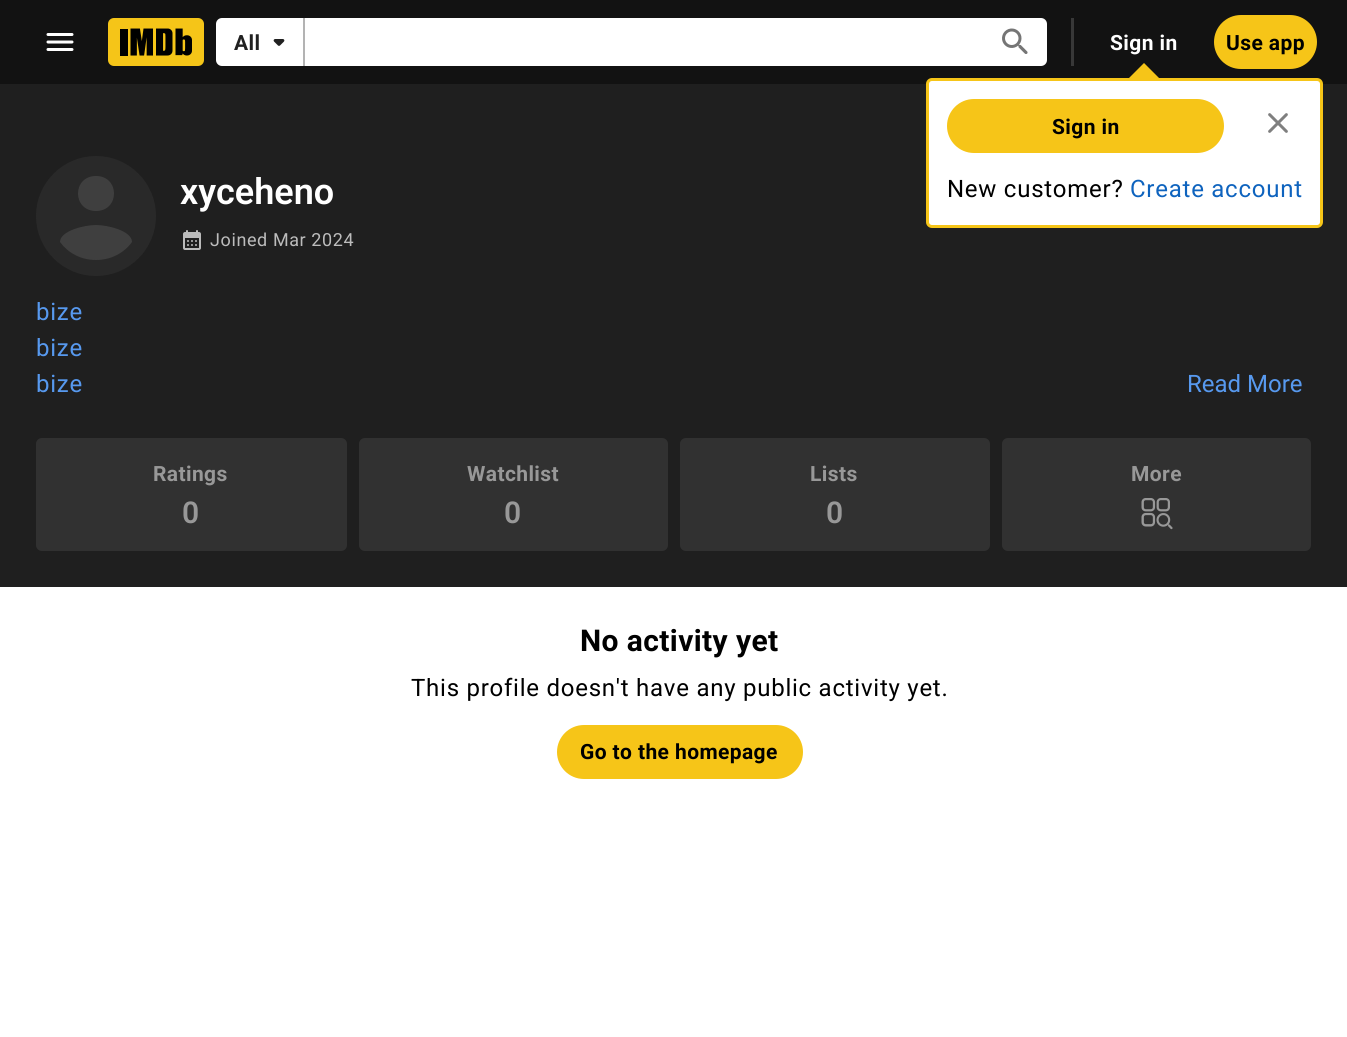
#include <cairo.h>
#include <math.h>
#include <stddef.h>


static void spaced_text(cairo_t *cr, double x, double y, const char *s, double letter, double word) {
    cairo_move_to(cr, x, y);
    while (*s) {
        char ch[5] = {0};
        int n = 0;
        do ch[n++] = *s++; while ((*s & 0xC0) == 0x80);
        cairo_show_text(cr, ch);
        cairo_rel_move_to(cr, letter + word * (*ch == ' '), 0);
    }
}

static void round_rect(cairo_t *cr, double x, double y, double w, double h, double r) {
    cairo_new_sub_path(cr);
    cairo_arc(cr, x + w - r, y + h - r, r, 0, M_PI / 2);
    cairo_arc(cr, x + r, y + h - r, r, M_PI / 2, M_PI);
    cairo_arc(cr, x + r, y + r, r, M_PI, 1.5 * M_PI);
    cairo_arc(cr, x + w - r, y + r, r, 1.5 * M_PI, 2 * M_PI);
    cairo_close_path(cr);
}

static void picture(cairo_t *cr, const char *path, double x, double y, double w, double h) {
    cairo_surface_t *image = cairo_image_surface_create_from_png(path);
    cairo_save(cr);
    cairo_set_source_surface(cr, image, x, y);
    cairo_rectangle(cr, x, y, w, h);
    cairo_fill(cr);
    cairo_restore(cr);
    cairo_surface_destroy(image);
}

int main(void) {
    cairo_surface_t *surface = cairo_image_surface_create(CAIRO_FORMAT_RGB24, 1347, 1037);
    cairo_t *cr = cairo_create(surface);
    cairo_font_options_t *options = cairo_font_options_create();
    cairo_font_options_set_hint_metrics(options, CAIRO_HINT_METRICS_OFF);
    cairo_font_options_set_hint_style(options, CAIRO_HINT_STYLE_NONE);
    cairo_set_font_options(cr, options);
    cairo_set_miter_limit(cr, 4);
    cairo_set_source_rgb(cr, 1, 1, 1);
    cairo_paint(cr);
    cairo_set_source_rgb(cr, 0.071, 0.071, 0.071);
    cairo_rectangle(cr, 0, 0, 1347, 84);
    cairo_fill(cr);
    picture(cr, "img1.png", 46, 33, 28, 18);
    picture(cr, "img2.png", 108, 18, 96, 48);
    cairo_set_source_rgb(cr, 1, 1, 1);
    round_rect(cr, 216, 18, 831, 48, 6);
    cairo_fill(cr);
    cairo_set_source_rgb(cr, 0.702, 0.702, 0.702);
    cairo_rectangle(cr, 303, 18, 2, 48);
    cairo_fill(cr);
    cairo_select_font_face(cr, "Roboto", CAIRO_FONT_SLANT_NORMAL, CAIRO_FONT_WEIGHT_BOLD);
    cairo_set_font_size(cr, 21);
    cairo_set_source_rgb(cr, 0.129, 0.129, 0.129);
    spaced_text(cr, 234, 50, "All", 0.4, 0);
    picture(cr, "img3.png", 273, 39, 12, 7);
    picture(cr, "img4.png", 1002, 28, 26, 26);
    cairo_set_source_rgb(cr, 0.22, 0.22, 0.22);
    cairo_rectangle(cr, 1071, 18, 3, 48);
    cairo_fill(cr);
    cairo_set_source_rgb(cr, 1, 1, 1);
    spaced_text(cr, 1110, 50, "Sign in", 0.4, 0);
    cairo_set_source_rgb(cr, 0.122, 0.122, 0.122);
    cairo_rectangle(cr, 0, 84, 1347, 503);
    cairo_fill(cr);
    cairo_set_source_rgb(cr, 1, 1, 1);
    round_rect(cr, 927.5, 79.5, 394, 147, 4.5);
    cairo_fill_preserve(cr);
    cairo_set_source_rgb(cr, 0.961, 0.773, 0.094);
    cairo_set_line_width(cr, 3);
    cairo_stroke(cr);
    cairo_new_path(cr);
    cairo_move_to(cr, 1127, 81);
    cairo_line_to(cr, 1162, 81);
    cairo_line_to(cr, 1144, 63);
    cairo_line_to(cr, 1127, 80);
    cairo_close_path(cr);
    cairo_fill(cr);
    round_rect(cr, 947, 99, 277, 54, 27);
    cairo_fill(cr);
    cairo_set_source_rgb(cr, 0, 0, 0);
    spaced_text(cr, 1052, 134, "Sign in", 0.4, 0);
    picture(cr, "img5.png", 1268, 113, 20, 20);
    cairo_select_font_face(cr, "Roboto", CAIRO_FONT_SLANT_NORMAL, CAIRO_FONT_WEIGHT_NORMAL);
    cairo_set_font_size(cr, 24);
    spaced_text(cr, 947, 197, "New customer?", 0.75, 0);
    cairo_set_source_rgb(cr, 0.055, 0.388, 0.745);
    spaced_text(cr, 1130, 197, "Create account", 0.75, 0);
    cairo_set_source_rgb(cr, 0.961, 0.773, 0.094);
    round_rect(cr, 1214, 15, 103, 54, 27);
    cairo_fill(cr);
    cairo_select_font_face(cr, "Roboto", CAIRO_FONT_SLANT_NORMAL, CAIRO_FONT_WEIGHT_BOLD);
    cairo_set_font_size(cr, 21);
    cairo_set_source_rgb(cr, 0, 0, 0);
    spaced_text(cr, 1226, 50, "Use app", 0.4, 0);
    cairo_set_source_rgb(cr, 0.071, 0.071, 0.071);
    cairo_new_path(cr);
    cairo_arc(cr, 96, 216, 60, 0, 2 * M_PI);
    cairo_fill(cr);
    cairo_set_source_rgba(cr, 1, 1, 1, 0.1);
    cairo_arc(cr, 96, 216, 60, 0, 2 * M_PI);
    cairo_fill(cr);
    cairo_set_source_rgb(cr, 0.247, 0.247, 0.247);
    cairo_new_path(cr);
    cairo_move_to(cr, 96, 176);
    cairo_curve_to(cr, 120, 176, 120, 211, 96, 211);
    cairo_curve_to(cr, 72, 211, 72, 176, 96, 176);
    cairo_close_path(cr);
    cairo_move_to(cr, 96, 260);
    cairo_curve_to(cr, 81, 260, 68, 253, 60, 242);
    cairo_curve_to(cr, 60, 231, 84, 225, 96, 225);
    cairo_curve_to(cr, 108, 225, 132, 231, 132, 242);
    cairo_curve_to(cr, 124, 253, 111, 260, 96, 260);
    cairo_close_path(cr);
    cairo_fill(cr);
    cairo_select_font_face(cr, "Roboto SemiBold", CAIRO_FONT_SLANT_NORMAL, CAIRO_FONT_WEIGHT_NORMAL);
    cairo_set_font_size(cr, 36);
    cairo_set_source_rgb(cr, 1, 1, 1);
    cairo_move_to(cr, 180, 204);
    cairo_show_text(cr, "xyceheno");
    picture(cr, "img6.png", 183, 230, 18, 20);
    cairo_select_font_face(cr, "Roboto", CAIRO_FONT_SLANT_NORMAL, CAIRO_FONT_WEIGHT_NORMAL);
    cairo_set_font_size(cr, 18);
    cairo_set_source_rgb(cr, 0.737, 0.737, 0.737);
    spaced_text(cr, 210, 246, "Joined Mar 2024", 0.6, 0);
    cairo_set_font_size(cr, 24);
    cairo_set_source_rgb(cr, 0.341, 0.6, 0.937);
    spaced_text(cr, 36, 320, "bize", 0.75, 0);
    spaced_text(cr, 36, 356, "bize", 0.75, 0);
    spaced_text(cr, 36, 392, "bize", 0.75, 0);
    cairo_move_to(cr, 1187, 392);
    cairo_show_text(cr, "Read More");
    cairo_set_source_rgb(cr, 0.192, 0.192, 0.192);
    round_rect(cr, 36, 438, 311, 113, 6);
    cairo_fill(cr);
    cairo_select_font_face(cr, "Roboto", CAIRO_FONT_SLANT_NORMAL, CAIRO_FONT_WEIGHT_BOLD);
    cairo_set_font_size(cr, 21);
    cairo_set_source_rgb(cr, 0.596, 0.596, 0.596);
    spaced_text(cr, 153, 481, "Ratings", 0.4, 0);
    cairo_select_font_face(cr, "Roboto SemiBold", CAIRO_FONT_SLANT_NORMAL, CAIRO_FONT_WEIGHT_NORMAL);
    cairo_set_font_size(cr, 30);
    spaced_text(cr, 182, 523, "0", 0.4, 0);
    cairo_set_source_rgb(cr, 0.192, 0.192, 0.192);
    round_rect(cr, 359, 438, 309, 113, 6);
    cairo_fill(cr);
    cairo_select_font_face(cr, "Roboto", CAIRO_FONT_SLANT_NORMAL, CAIRO_FONT_WEIGHT_BOLD);
    cairo_set_font_size(cr, 21);
    cairo_set_source_rgb(cr, 0.596, 0.596, 0.596);
    spaced_text(cr, 467, 481, "Watchlist", 0.4, 0);
    cairo_select_font_face(cr, "Roboto SemiBold", CAIRO_FONT_SLANT_NORMAL, CAIRO_FONT_WEIGHT_NORMAL);
    cairo_set_font_size(cr, 30);
    spaced_text(cr, 504, 523, "0", 0.4, 0);
    cairo_set_source_rgb(cr, 0.192, 0.192, 0.192);
    round_rect(cr, 680, 438, 310, 113, 6);
    cairo_fill(cr);
    cairo_select_font_face(cr, "Roboto", CAIRO_FONT_SLANT_NORMAL, CAIRO_FONT_WEIGHT_BOLD);
    cairo_set_font_size(cr, 21);
    cairo_set_source_rgb(cr, 0.596, 0.596, 0.596);
    spaced_text(cr, 810, 481, "Lists", 0.4, 0);
    cairo_select_font_face(cr, "Roboto SemiBold", CAIRO_FONT_SLANT_NORMAL, CAIRO_FONT_WEIGHT_NORMAL);
    cairo_set_font_size(cr, 30);
    spaced_text(cr, 826, 523, "0", 0.4, 0);
    cairo_set_source_rgb(cr, 0.192, 0.192, 0.192);
    round_rect(cr, 1002, 438, 309, 113, 6);
    cairo_fill(cr);
    cairo_select_font_face(cr, "Roboto", CAIRO_FONT_SLANT_NORMAL, CAIRO_FONT_WEIGHT_BOLD);
    cairo_set_font_size(cr, 21);
    cairo_set_source_rgb(cr, 0.596, 0.596, 0.596);
    spaced_text(cr, 1131, 481, "More", 0.4, 0);
    picture(cr, "img7.png", 1141, 498, 32, 32);
    cairo_set_font_size(cr, 30);
    cairo_set_source_rgb(cr, 0, 0, 0);
    spaced_text(cr, 580, 651, "No activity yet", 0.4, 0);
    cairo_select_font_face(cr, "Roboto", CAIRO_FONT_SLANT_NORMAL, CAIRO_FONT_WEIGHT_NORMAL);
    cairo_set_font_size(cr, 24);
    spaced_text(cr, 411, 696, "This profile doesn't have any public activity yet.", 0.75, 0);
    cairo_set_source_rgb(cr, 0.961, 0.773, 0.094);
    round_rect(cr, 557, 725, 246, 54, 27);
    cairo_fill(cr);
    cairo_select_font_face(cr, "Roboto", CAIRO_FONT_SLANT_NORMAL, CAIRO_FONT_WEIGHT_BOLD);
    cairo_set_font_size(cr, 21);
    cairo_set_source_rgb(cr, 0, 0, 0);
    spaced_text(cr, 580, 759, "Go to the homepage", 0.4, 0);
    cairo_surface_write_to_png(surface, "page.png");
    cairo_font_options_destroy(options);
    cairo_destroy(cr);
    cairo_surface_destroy(surface);
    return 0;
}
